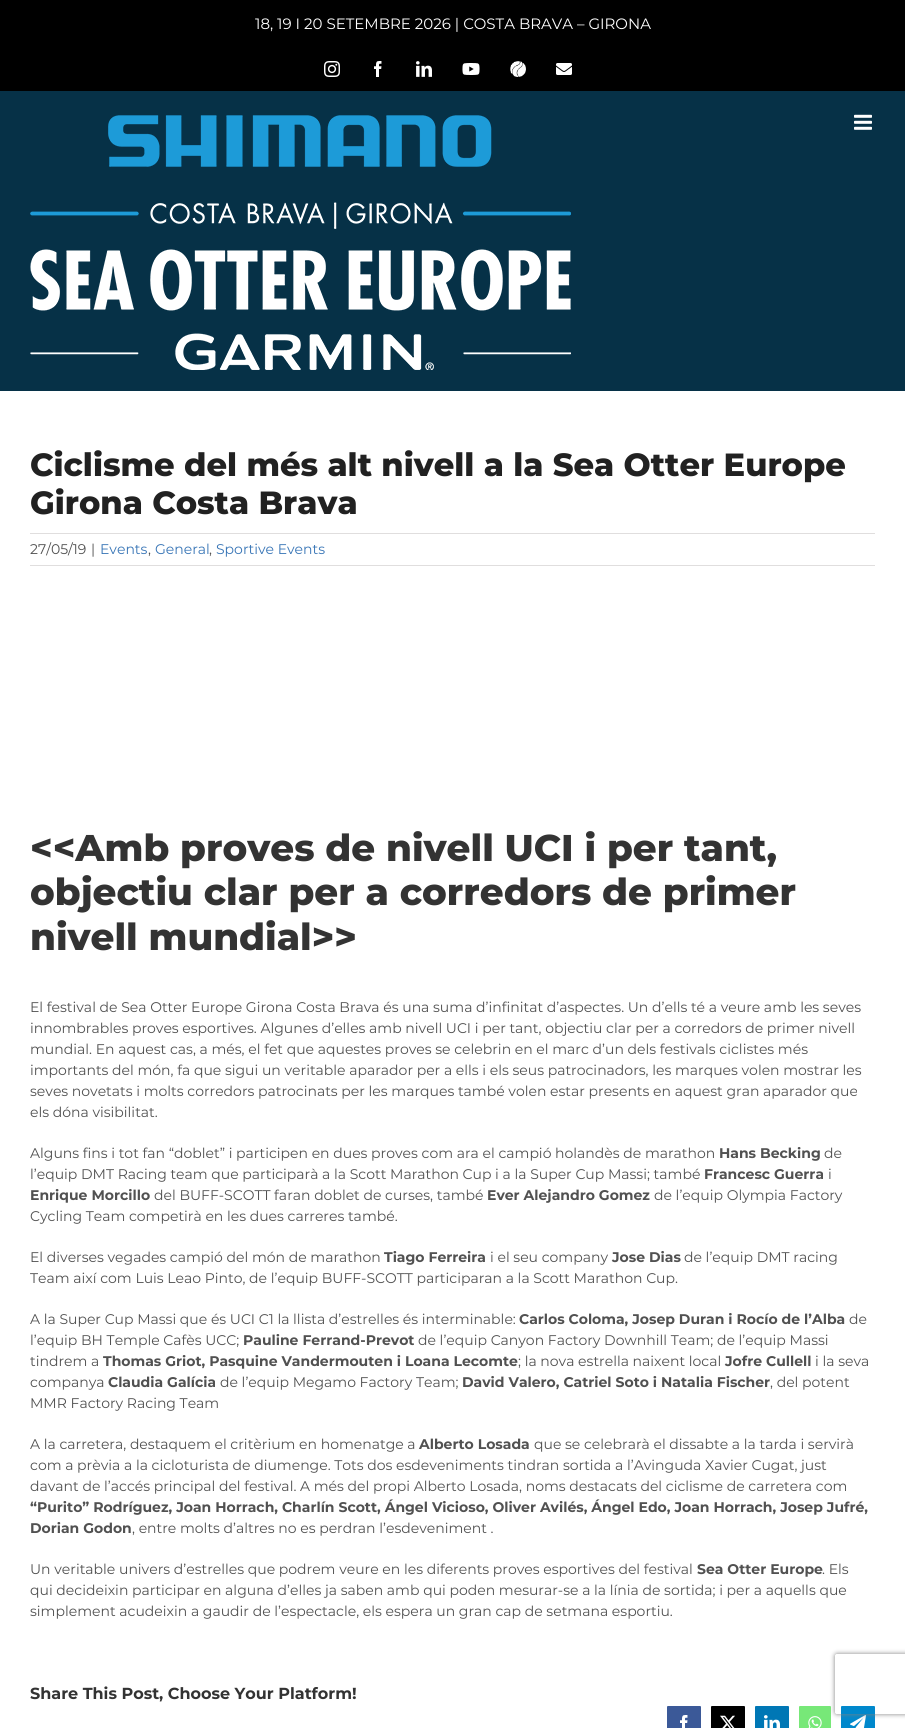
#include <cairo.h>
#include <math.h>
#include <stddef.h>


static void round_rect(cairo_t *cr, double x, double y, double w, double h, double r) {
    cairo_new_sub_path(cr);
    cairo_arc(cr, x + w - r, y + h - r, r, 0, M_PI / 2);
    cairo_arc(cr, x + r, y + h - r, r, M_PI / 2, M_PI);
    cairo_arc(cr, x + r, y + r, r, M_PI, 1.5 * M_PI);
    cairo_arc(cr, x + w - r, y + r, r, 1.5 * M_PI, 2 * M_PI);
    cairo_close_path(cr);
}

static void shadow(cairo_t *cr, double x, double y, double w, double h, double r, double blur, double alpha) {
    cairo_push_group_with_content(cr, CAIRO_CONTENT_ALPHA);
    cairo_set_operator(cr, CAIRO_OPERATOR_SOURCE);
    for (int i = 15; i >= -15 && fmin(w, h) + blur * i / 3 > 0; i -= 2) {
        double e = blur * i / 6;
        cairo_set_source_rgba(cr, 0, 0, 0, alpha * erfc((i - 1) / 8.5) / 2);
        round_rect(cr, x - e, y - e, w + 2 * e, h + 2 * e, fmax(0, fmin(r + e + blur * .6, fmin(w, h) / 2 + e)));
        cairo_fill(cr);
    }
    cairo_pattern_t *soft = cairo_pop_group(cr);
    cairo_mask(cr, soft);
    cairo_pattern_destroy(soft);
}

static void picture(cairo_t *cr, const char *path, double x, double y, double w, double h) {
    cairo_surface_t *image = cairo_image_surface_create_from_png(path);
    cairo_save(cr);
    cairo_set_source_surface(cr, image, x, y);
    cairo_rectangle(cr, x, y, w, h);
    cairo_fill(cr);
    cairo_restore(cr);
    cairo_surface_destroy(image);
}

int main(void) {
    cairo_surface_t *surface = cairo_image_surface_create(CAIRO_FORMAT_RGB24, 905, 1728);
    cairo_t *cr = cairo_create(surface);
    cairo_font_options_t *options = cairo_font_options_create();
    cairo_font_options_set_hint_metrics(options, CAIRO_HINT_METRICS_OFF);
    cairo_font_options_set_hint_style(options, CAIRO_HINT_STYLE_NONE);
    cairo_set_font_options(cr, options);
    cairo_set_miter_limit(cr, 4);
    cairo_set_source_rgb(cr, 1, 1, 1);
    cairo_paint(cr);
    cairo_set_source_rgb(cr, 0, 0, 0);
    cairo_rectangle(cr, 0, 0, 905, 91);
    cairo_fill(cr);
    cairo_select_font_face(cr, "Montserrat", CAIRO_FONT_SLANT_NORMAL, CAIRO_FONT_WEIGHT_NORMAL);
    cairo_set_font_size(cr, 15);
    cairo_set_source_rgb(cr, 1, 1, 1);
    cairo_move_to(cr, 255, 29);
    cairo_show_text(cr, "18, 19 I 20 SETEMBRE 2026 | COSTA BRAVA – GIRONA");
    picture(cr, "img1.png", 324, 61, 16, 16);
    picture(cr, "img2.png", 374, 61, 8, 16);
    picture(cr, "img3.png", 416, 61, 16, 16);
    picture(cr, "img4.png", 462, 63, 18, 12);
    picture(cr, "img5.png", 510, 61, 16, 16);
    picture(cr, "img6.png", 556, 63, 16, 12);
    cairo_set_source_rgb(cr, 0.027, 0.192, 0.278);
    cairo_rectangle(cr, 0, 91, 905, 300);
    cairo_fill(cr);
    picture(cr, "img7.png", 30, 115, 541, 255);
    picture(cr, "img8.png", 854, 114, 18, 16);
    cairo_select_font_face(cr, "Montserrat ExtraBold", CAIRO_FONT_SLANT_NORMAL, CAIRO_FONT_WEIGHT_NORMAL);
    cairo_set_font_size(cr, 32.1);
    cairo_set_source_rgb(cr, 0.129, 0.129, 0.129);
    cairo_move_to(cr, 30, 476);
    cairo_show_text(cr, "Ciclisme del més alt nivell a la Sea Otter Europe");
    cairo_move_to(cr, 30, 514);
    cairo_show_text(cr, "Girona Costa Brava");
    cairo_set_source_rgb(cr, 0.878, 0.871, 0.871);
    cairo_rectangle(cr, 30, 533, 845, 1);
    cairo_fill(cr);
    cairo_rectangle(cr, 30, 565, 845, 1);
    cairo_fill(cr);
    cairo_select_font_face(cr, "Montserrat", CAIRO_FONT_SLANT_NORMAL, CAIRO_FONT_WEIGHT_NORMAL);
    cairo_set_font_size(cr, 14);
    cairo_set_source_rgb(cr, 0.318, 0.318, 0.318);
    cairo_move_to(cr, 30, 554);
    cairo_show_text(cr, "27/05/19");
    cairo_move_to(cr, 91, 554);
    cairo_show_text(cr, "|");
    cairo_set_source_rgb(cr, 0.22, 0.459, 0.714);
    cairo_move_to(cr, 100, 554);
    cairo_show_text(cr, "Events");
    cairo_set_source_rgb(cr, 0.318, 0.318, 0.318);
    cairo_move_to(cr, 148, 554);
    cairo_show_text(cr, ",");
    cairo_set_source_rgb(cr, 0.22, 0.459, 0.714);
    cairo_move_to(cr, 155, 554);
    cairo_show_text(cr, "General");
    cairo_set_source_rgb(cr, 0.318, 0.318, 0.318);
    cairo_move_to(cr, 209, 554);
    cairo_show_text(cr, ",");
    cairo_set_source_rgb(cr, 0.22, 0.459, 0.714);
    cairo_move_to(cr, 216, 554);
    cairo_show_text(cr, "Sportive Events");
    cairo_select_font_face(cr, "Montserrat ExtraBold", CAIRO_FONT_SLANT_NORMAL, CAIRO_FONT_WEIGHT_NORMAL);
    cairo_set_font_size(cr, 37.2);
    cairo_set_source_rgb(cr, 0.2, 0.2, 0.2);
    cairo_move_to(cr, 30, 861);
    cairo_show_text(cr, "<<Amb proves de nivell UCI i per tant,");
    cairo_move_to(cr, 30, 905);
    cairo_show_text(cr, "objectiu clar per a corredors de primer");
    cairo_move_to(cr, 30, 950);
    cairo_show_text(cr, "nivell mundial>>");
    cairo_select_font_face(cr, "Montserrat", CAIRO_FONT_SLANT_NORMAL, CAIRO_FONT_WEIGHT_NORMAL);
    cairo_set_font_size(cr, 14);
    cairo_set_source_rgb(cr, 0.318, 0.318, 0.318);
    cairo_move_to(cr, 30, 1012);
    cairo_show_text(cr, "El festival de Sea Otter Europe Girona Costa Brava és una suma d’infinitat d’aspectes. Un d’ells té a veure amb les seves");
    cairo_move_to(cr, 30, 1033);
    cairo_show_text(cr, "innombrables proves esportives. Algunes d’elles amb nivell UCI i per tant, objectiu clar per a corredors de primer nivell");
    cairo_move_to(cr, 30, 1054);
    cairo_show_text(cr, "mundial. En aquest cas, a més, el fet que aquestes proves se celebrin en el marc d’un dels festivals ciclistes més");
    cairo_move_to(cr, 30, 1075);
    cairo_show_text(cr, "importants del món, fa que sigui un veritable aparador per a ells i els seus patrocinadors, les marques volen mostrar les");
    cairo_move_to(cr, 30, 1096);
    cairo_show_text(cr, "seves novetats i molts corredors patrocinats per les marques també volen estar presents en aquest gran aparador que");
    cairo_move_to(cr, 30, 1117);
    cairo_show_text(cr, "els dóna visibilitat.");
    cairo_move_to(cr, 30, 1158);
    cairo_show_text(cr, "Alguns fins i tot fan “doblet” i participen en dues proves com ara el campió holandès de marathon");
    cairo_select_font_face(cr, "Montserrat", CAIRO_FONT_SLANT_NORMAL, CAIRO_FONT_WEIGHT_BOLD);
    cairo_move_to(cr, 719, 1158);
    cairo_show_text(cr, "Hans Becking");
    cairo_select_font_face(cr, "Montserrat", CAIRO_FONT_SLANT_NORMAL, CAIRO_FONT_WEIGHT_NORMAL);
    cairo_move_to(cr, 824, 1158);
    cairo_show_text(cr, "de");
    cairo_move_to(cr, 30, 1179);
    cairo_show_text(cr, "l’equip DMT Racing team que participarà a la Scott Marathon Cup i a la Super Cup Massi; també");
    cairo_select_font_face(cr, "Montserrat", CAIRO_FONT_SLANT_NORMAL, CAIRO_FONT_WEIGHT_BOLD);
    cairo_move_to(cr, 704, 1179);
    cairo_show_text(cr, "Francesc Guerra");
    cairo_select_font_face(cr, "Montserrat", CAIRO_FONT_SLANT_NORMAL, CAIRO_FONT_WEIGHT_NORMAL);
    cairo_move_to(cr, 828, 1179);
    cairo_show_text(cr, "i");
    cairo_select_font_face(cr, "Montserrat", CAIRO_FONT_SLANT_NORMAL, CAIRO_FONT_WEIGHT_BOLD);
    cairo_move_to(cr, 30, 1200);
    cairo_show_text(cr, "Enrique Morcillo");
    cairo_select_font_face(cr, "Montserrat", CAIRO_FONT_SLANT_NORMAL, CAIRO_FONT_WEIGHT_NORMAL);
    cairo_move_to(cr, 154, 1200);
    cairo_show_text(cr, "del BUFF-SCOTT faran doblet de curses, també");
    cairo_select_font_face(cr, "Montserrat", CAIRO_FONT_SLANT_NORMAL, CAIRO_FONT_WEIGHT_BOLD);
    cairo_move_to(cr, 487, 1200);
    cairo_show_text(cr, "Ever Alejandro Gomez");
    cairo_select_font_face(cr, "Montserrat", CAIRO_FONT_SLANT_NORMAL, CAIRO_FONT_WEIGHT_NORMAL);
    cairo_move_to(cr, 654, 1200);
    cairo_show_text(cr, "de l’equip Olympia Factory");
    cairo_move_to(cr, 30, 1221);
    cairo_show_text(cr, "Cycling Team competirà en les dues carreres també.");
    cairo_move_to(cr, 30, 1262);
    cairo_show_text(cr, "El diverses vegades campió del món de marathon");
    cairo_select_font_face(cr, "Montserrat", CAIRO_FONT_SLANT_NORMAL, CAIRO_FONT_WEIGHT_BOLD);
    cairo_move_to(cr, 384, 1262);
    cairo_show_text(cr, "Tiago Ferreira");
    cairo_select_font_face(cr, "Montserrat", CAIRO_FONT_SLANT_NORMAL, CAIRO_FONT_WEIGHT_NORMAL);
    cairo_move_to(cr, 490, 1262);
    cairo_show_text(cr, "i el seu company");
    cairo_select_font_face(cr, "Montserrat", CAIRO_FONT_SLANT_NORMAL, CAIRO_FONT_WEIGHT_BOLD);
    cairo_move_to(cr, 612, 1262);
    cairo_show_text(cr, "Jose Dias");
    cairo_select_font_face(cr, "Montserrat", CAIRO_FONT_SLANT_NORMAL, CAIRO_FONT_WEIGHT_NORMAL);
    cairo_move_to(cr, 684, 1262);
    cairo_show_text(cr, "de l’equip DMT racing");
    cairo_move_to(cr, 30, 1283);
    cairo_show_text(cr, "Team així com Luis Leao Pinto, de l’equip BUFF-SCOTT participaran a la Scott Marathon Cup.");
    cairo_move_to(cr, 30, 1324);
    cairo_show_text(cr, "A la Super Cup Massi que és UCI C1 la llista d’estrelles és interminable:");
    cairo_select_font_face(cr, "Montserrat", CAIRO_FONT_SLANT_NORMAL, CAIRO_FONT_WEIGHT_BOLD);
    cairo_move_to(cr, 519, 1324);
    cairo_show_text(cr, "Carlos Coloma, Josep Duran i Rocío de l’Alba");
    cairo_select_font_face(cr, "Montserrat", CAIRO_FONT_SLANT_NORMAL, CAIRO_FONT_WEIGHT_NORMAL);
    cairo_move_to(cr, 849, 1324);
    cairo_show_text(cr, "de");
    cairo_move_to(cr, 30, 1345);
    cairo_show_text(cr, "l’equip BH Temple Cafès UCC;");
    cairo_select_font_face(cr, "Montserrat", CAIRO_FONT_SLANT_NORMAL, CAIRO_FONT_WEIGHT_BOLD);
    cairo_move_to(cr, 243, 1345);
    cairo_show_text(cr, "Pauline Ferrand-Prevot");
    cairo_select_font_face(cr, "Montserrat", CAIRO_FONT_SLANT_NORMAL, CAIRO_FONT_WEIGHT_NORMAL);
    cairo_move_to(cr, 418, 1345);
    cairo_show_text(cr, "de l’equip Canyon Factory Downhill Team; de l’equip Massi");
    cairo_move_to(cr, 30, 1366);
    cairo_show_text(cr, "tindrem a");
    cairo_select_font_face(cr, "Montserrat", CAIRO_FONT_SLANT_NORMAL, CAIRO_FONT_WEIGHT_BOLD);
    cairo_move_to(cr, 103, 1366);
    cairo_show_text(cr, "Thomas Griot, Pasquine Vandermouten i Loana Lecomte");
    cairo_select_font_face(cr, "Montserrat", CAIRO_FONT_SLANT_NORMAL, CAIRO_FONT_WEIGHT_NORMAL);
    cairo_move_to(cr, 518, 1366);
    cairo_show_text(cr, "; la nova estrella naixent local");
    cairo_select_font_face(cr, "Montserrat", CAIRO_FONT_SLANT_NORMAL, CAIRO_FONT_WEIGHT_BOLD);
    cairo_move_to(cr, 725, 1366);
    cairo_show_text(cr, "Jofre Cullell");
    cairo_select_font_face(cr, "Montserrat", CAIRO_FONT_SLANT_NORMAL, CAIRO_FONT_WEIGHT_NORMAL);
    cairo_move_to(cr, 815, 1366);
    cairo_show_text(cr, "i la seva");
    cairo_move_to(cr, 30, 1387);
    cairo_show_text(cr, "companya");
    cairo_select_font_face(cr, "Montserrat", CAIRO_FONT_SLANT_NORMAL, CAIRO_FONT_WEIGHT_BOLD);
    cairo_move_to(cr, 108, 1387);
    cairo_show_text(cr, "Claudia Galícia");
    cairo_select_font_face(cr, "Montserrat", CAIRO_FONT_SLANT_NORMAL, CAIRO_FONT_WEIGHT_NORMAL);
    cairo_move_to(cr, 220, 1387);
    cairo_show_text(cr, "de l’equip Megamo Factory Team;");
    cairo_select_font_face(cr, "Montserrat", CAIRO_FONT_SLANT_NORMAL, CAIRO_FONT_WEIGHT_BOLD);
    cairo_move_to(cr, 462, 1387);
    cairo_show_text(cr, "David Valero, Catriel Soto i Natalia Fischer");
    cairo_select_font_face(cr, "Montserrat", CAIRO_FONT_SLANT_NORMAL, CAIRO_FONT_WEIGHT_NORMAL);
    cairo_move_to(cr, 770, 1387);
    cairo_show_text(cr, ", del potent");
    cairo_move_to(cr, 30, 1408);
    cairo_show_text(cr, "MMR Factory Racing Team");
    cairo_move_to(cr, 30, 1449);
    cairo_show_text(cr, "A la carretera, destaquem el critèrium en homenatge a");
    cairo_select_font_face(cr, "Montserrat", CAIRO_FONT_SLANT_NORMAL, CAIRO_FONT_WEIGHT_BOLD);
    cairo_move_to(cr, 419, 1449);
    cairo_show_text(cr, "Alberto Losada");
    cairo_select_font_face(cr, "Montserrat", CAIRO_FONT_SLANT_NORMAL, CAIRO_FONT_WEIGHT_NORMAL);
    cairo_move_to(cr, 534, 1449);
    cairo_show_text(cr, "que se celebrarà el dissabte a la tarda i servirà");
    cairo_move_to(cr, 30, 1470);
    cairo_show_text(cr, "com a prèvia a la cicloturista de diumenge. Tots dos esdeveniments tindran sortida a l’Avinguda Xavier Cugat, just");
    cairo_move_to(cr, 30, 1491);
    cairo_show_text(cr, "davant de l’accés principal del festival. A més del propi Alberto Losada, noms destacats del ciclisme de carretera com");
    cairo_select_font_face(cr, "Montserrat", CAIRO_FONT_SLANT_NORMAL, CAIRO_FONT_WEIGHT_BOLD);
    cairo_move_to(cr, 30, 1512);
    cairo_show_text(cr, "“Purito” Rodríguez, Joan Horrach, Charlín Scott, Ángel Vicioso, Oliver Avilés, Ángel Edo, Joan Horrach, Josep Jufré,");
    cairo_move_to(cr, 30, 1533);
    cairo_show_text(cr, "Dorian Godon");
    cairo_select_font_face(cr, "Montserrat", CAIRO_FONT_SLANT_NORMAL, CAIRO_FONT_WEIGHT_NORMAL);
    cairo_move_to(cr, 132, 1533);
    cairo_show_text(cr, ", entre molts d’altres no es perdran l’esdeveniment .");
    cairo_move_to(cr, 30, 1574);
    cairo_show_text(cr, "Un veritable univers d’estrelles que podrem veure en les diferents proves esportives del festival");
    cairo_select_font_face(cr, "Montserrat", CAIRO_FONT_SLANT_NORMAL, CAIRO_FONT_WEIGHT_BOLD);
    cairo_move_to(cr, 697, 1574);
    cairo_show_text(cr, "Sea Otter Europe");
    cairo_select_font_face(cr, "Montserrat", CAIRO_FONT_SLANT_NORMAL, CAIRO_FONT_WEIGHT_NORMAL);
    cairo_move_to(cr, 822, 1574);
    cairo_show_text(cr, ". Els");
    cairo_move_to(cr, 30, 1595);
    cairo_show_text(cr, "qui decideixin participar en alguna d’elles ja saben amb qui poden mesurar-se a la línia de sortida; i per a aquells que");
    cairo_move_to(cr, 30, 1616);
    cairo_show_text(cr, "simplement acudeixin a gaudir de l’espectacle, els espera un gran cap de setmana esportiu.");
    cairo_select_font_face(cr, "Montserrat", CAIRO_FONT_SLANT_NORMAL, CAIRO_FONT_WEIGHT_BOLD);
    cairo_set_font_size(cr, 16);
    cairo_set_source_rgb(cr, 0.2, 0.2, 0.2);
    cairo_move_to(cr, 30, 1699);
    cairo_show_text(cr, "Share This Post, Choose Your Platform!");
    cairo_set_source_rgb(cr, 0.231, 0.349, 0.596);
    round_rect(cr, 667.5, 1706.5, 33, 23, 0.5);
    cairo_fill_preserve(cr);
    cairo_set_line_width(cr, 1);
    cairo_stroke(cr);
    picture(cr, "img9.png", 680, 1715, 8, 13);
    cairo_set_source_rgb(cr, 0, 0, 0);
    round_rect(cr, 711.5, 1706.5, 33, 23, 0.5);
    cairo_fill_preserve(cr);
    cairo_stroke(cr);
    picture(cr, "img10.png", 720, 1715, 15, 13);
    cairo_set_source_rgb(cr, 0, 0.467, 0.71);
    round_rect(cr, 755.5, 1706.5, 33, 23, 0.5);
    cairo_fill_preserve(cr);
    cairo_stroke(cr);
    picture(cr, "img11.png", 764, 1715, 16, 13);
    cairo_set_source_rgb(cr, 0.467, 0.91, 0.471);
    round_rect(cr, 799.5, 1706.5, 31, 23, 0.5);
    cairo_fill_preserve(cr);
    cairo_stroke(cr);
    picture(cr, "img12.png", 808, 1716, 14, 12);
    cairo_set_source_rgb(cr, 0, 0.533, 0.8);
    round_rect(cr, 841.5, 1706.5, 33, 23, 0.5);
    cairo_fill_preserve(cr);
    cairo_stroke(cr);
    picture(cr, "img13.png", 850, 1715, 16, 13);
    cairo_save(cr);
    cairo_set_fill_rule(cr, CAIRO_FILL_RULE_EVEN_ODD);
    cairo_new_path(cr);
    cairo_move_to(cr, 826, 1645);
    cairo_line_to(cr, 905, 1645);
    cairo_line_to(cr, 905, 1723);
    cairo_line_to(cr, 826, 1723);
    cairo_close_path(cr);
    cairo_move_to(cr, 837, 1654);
    cairo_line_to(cr, 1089, 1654);
    cairo_curve_to(cr, 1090, 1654, 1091, 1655, 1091, 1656);
    cairo_line_to(cr, 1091, 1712);
    cairo_curve_to(cr, 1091, 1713, 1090, 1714, 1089, 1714);
    cairo_line_to(cr, 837, 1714);
    cairo_curve_to(cr, 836, 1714, 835, 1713, 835, 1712);
    cairo_line_to(cr, 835, 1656);
    cairo_curve_to(cr, 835, 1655, 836, 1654, 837, 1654);
    cairo_close_path(cr);
    cairo_clip(cr);
    cairo_set_source_rgb(cr, 0.502, 0.502, 0.502);
    shadow(cr, 835, 1654, 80, 60, 2, 2.5, 1);
    cairo_restore(cr);
    cairo_surface_write_to_png(surface, "page.png");
    cairo_font_options_destroy(options);
    cairo_destroy(cr);
    cairo_surface_destroy(surface);
    return 0;
}
